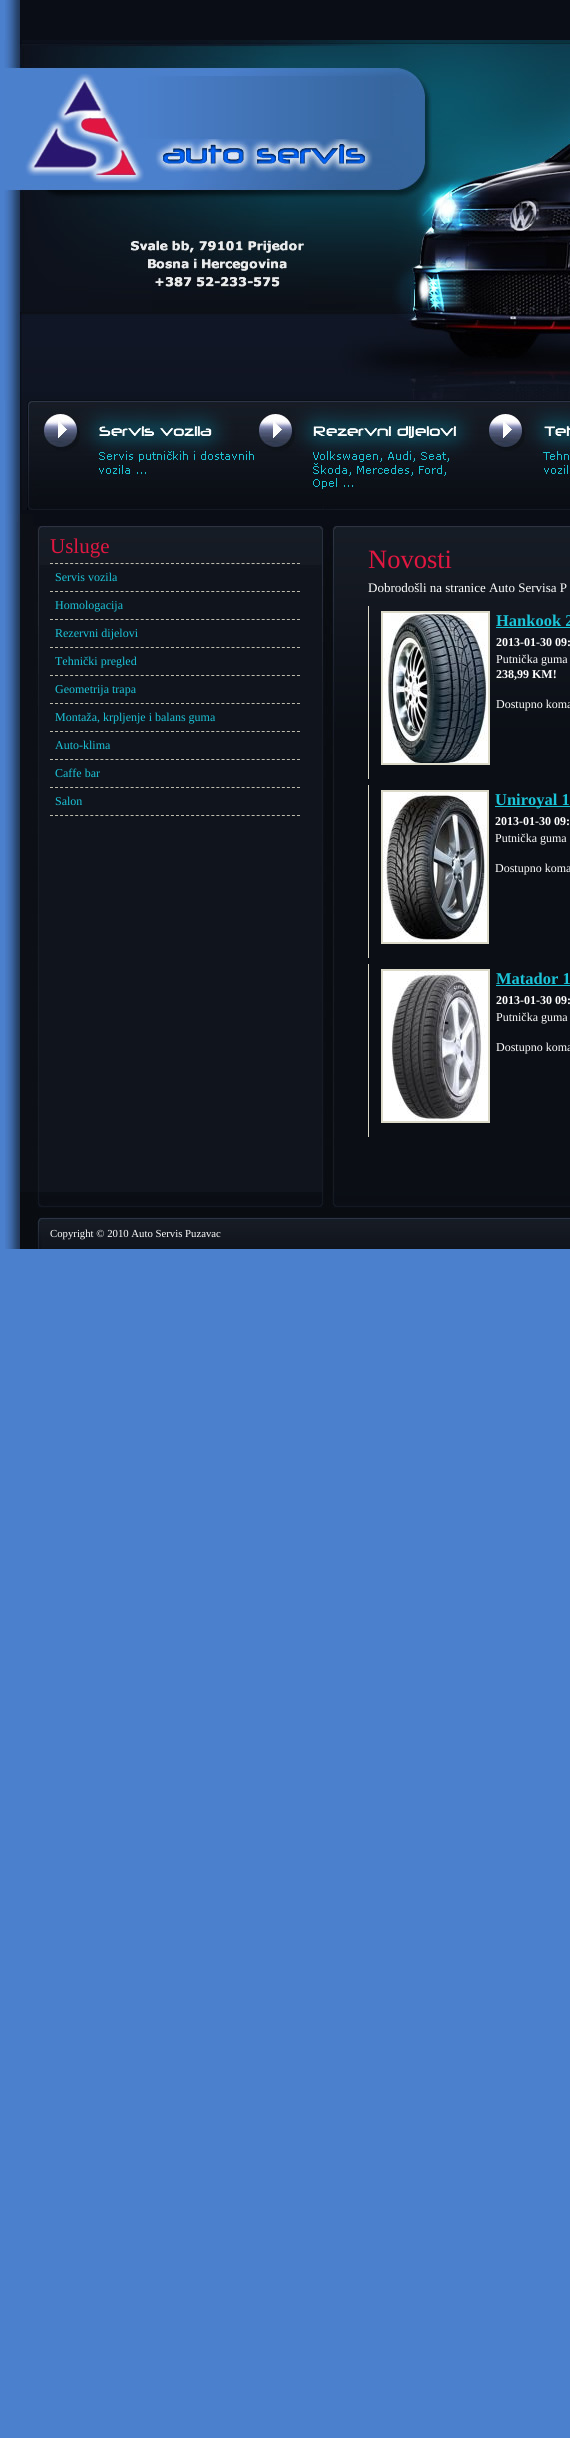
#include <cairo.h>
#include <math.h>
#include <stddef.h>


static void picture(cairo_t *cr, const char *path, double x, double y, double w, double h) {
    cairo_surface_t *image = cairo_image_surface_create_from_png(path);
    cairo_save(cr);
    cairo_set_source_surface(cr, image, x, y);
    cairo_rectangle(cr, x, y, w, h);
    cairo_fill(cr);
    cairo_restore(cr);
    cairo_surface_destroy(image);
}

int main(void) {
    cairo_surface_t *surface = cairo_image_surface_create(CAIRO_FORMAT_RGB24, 570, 2438);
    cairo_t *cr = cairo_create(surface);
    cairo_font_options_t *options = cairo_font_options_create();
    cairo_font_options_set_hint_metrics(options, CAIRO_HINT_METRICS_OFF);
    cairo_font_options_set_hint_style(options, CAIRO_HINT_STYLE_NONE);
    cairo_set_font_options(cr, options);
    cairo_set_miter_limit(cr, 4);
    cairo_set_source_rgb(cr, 0.294, 0.502, 0.804);
    cairo_paint(cr);
    picture(cr, "img1.png", 5, 0, 565, 514);
    picture(cr, "img2.png", 4, 40, 566, 360);
    picture(cr, "img3.png", 21, 400, 549, 110);
    picture(cr, "img4.png", 5, 514, 565, 678);
    cairo_select_font_face(cr, "Liberation Serif", CAIRO_FONT_SLANT_NORMAL, CAIRO_FONT_WEIGHT_NORMAL);
    cairo_set_font_size(cr, 21);
    cairo_set_source_rgb(cr, 0.882, 0.09, 0.255);
    cairo_move_to(cr, 50, 553);
    cairo_show_text(cr, "Usluge");
    cairo_new_path(cr);
    cairo_move_to(cr, 50, 815.5);
    cairo_line_to(cr, 300, 815.5);
    cairo_set_source_rgb(cr, 0.737, 0.729, 0.675);
    cairo_set_line_width(cr, 1);
    cairo_set_dash(cr, (double[]){3, 2.04}, 2, 0);
    cairo_stroke(cr);
    cairo_new_path(cr);
    cairo_move_to(cr, 50, 563.5);
    cairo_line_to(cr, 300, 563.5);
    cairo_stroke(cr);
    cairo_set_font_size(cr, 12);
    cairo_set_source_rgb(cr, 0.102, 0.769, 0.847);
    cairo_move_to(cr, 55, 581);
    cairo_show_text(cr, "Servis vozila");
    cairo_new_path(cr);
    cairo_move_to(cr, 50, 591.5);
    cairo_line_to(cr, 300, 591.5);
    cairo_set_source_rgb(cr, 0.737, 0.729, 0.675);
    cairo_stroke(cr);
    cairo_set_source_rgb(cr, 0.102, 0.769, 0.847);
    cairo_move_to(cr, 55, 609);
    cairo_show_text(cr, "Homologacija");
    cairo_new_path(cr);
    cairo_move_to(cr, 50, 619.5);
    cairo_line_to(cr, 300, 619.5);
    cairo_set_source_rgb(cr, 0.737, 0.729, 0.675);
    cairo_stroke(cr);
    cairo_set_source_rgb(cr, 0.102, 0.769, 0.847);
    cairo_move_to(cr, 55, 637);
    cairo_show_text(cr, "Rezervni dijelovi");
    cairo_new_path(cr);
    cairo_move_to(cr, 50, 647.5);
    cairo_line_to(cr, 300, 647.5);
    cairo_set_source_rgb(cr, 0.737, 0.729, 0.675);
    cairo_stroke(cr);
    cairo_set_source_rgb(cr, 0.102, 0.769, 0.847);
    cairo_move_to(cr, 55, 665);
    cairo_show_text(cr, "Tehnički pregled");
    cairo_new_path(cr);
    cairo_move_to(cr, 50, 675.5);
    cairo_line_to(cr, 300, 675.5);
    cairo_set_source_rgb(cr, 0.737, 0.729, 0.675);
    cairo_stroke(cr);
    cairo_set_source_rgb(cr, 0.102, 0.769, 0.847);
    cairo_move_to(cr, 55, 693);
    cairo_show_text(cr, "Geometrija trapa");
    cairo_new_path(cr);
    cairo_move_to(cr, 50, 703.5);
    cairo_line_to(cr, 300, 703.5);
    cairo_set_source_rgb(cr, 0.737, 0.729, 0.675);
    cairo_stroke(cr);
    cairo_set_source_rgb(cr, 0.102, 0.769, 0.847);
    cairo_move_to(cr, 55, 721);
    cairo_show_text(cr, "Montaža, krpljenje i balans guma");
    cairo_new_path(cr);
    cairo_move_to(cr, 50, 731.5);
    cairo_line_to(cr, 300, 731.5);
    cairo_set_source_rgb(cr, 0.737, 0.729, 0.675);
    cairo_stroke(cr);
    cairo_set_source_rgb(cr, 0.102, 0.769, 0.847);
    cairo_move_to(cr, 55, 749);
    cairo_show_text(cr, "Auto-klima");
    cairo_new_path(cr);
    cairo_move_to(cr, 50, 759.5);
    cairo_line_to(cr, 300, 759.5);
    cairo_set_source_rgb(cr, 0.737, 0.729, 0.675);
    cairo_stroke(cr);
    cairo_set_source_rgb(cr, 0.102, 0.769, 0.847);
    cairo_move_to(cr, 55, 777);
    cairo_show_text(cr, "Caffe bar");
    cairo_new_path(cr);
    cairo_move_to(cr, 50, 787.5);
    cairo_line_to(cr, 300, 787.5);
    cairo_set_source_rgb(cr, 0.737, 0.729, 0.675);
    cairo_stroke(cr);
    cairo_set_source_rgb(cr, 0.102, 0.769, 0.847);
    cairo_move_to(cr, 55, 805);
    cairo_show_text(cr, "Salon");
    cairo_set_font_size(cr, 26.5);
    cairo_set_source_rgb(cr, 0.882, 0.09, 0.255);
    cairo_move_to(cr, 368, 568);
    cairo_show_text(cr, "Novosti");
    cairo_set_font_size(cr, 13);
    cairo_set_source_rgb(cr, 1, 1, 1);
    cairo_move_to(cr, 368, 592);
    cairo_show_text(cr, "Dobrodošli na stranice Auto Servisa P");
    cairo_set_source_rgb(cr, 0.863, 0.855, 0.788);
    cairo_rectangle(cr, 368, 606, 1, 173);
    cairo_fill(cr);
    cairo_rectangle(cr, 382, 612, 107, 152);
    cairo_set_line_width(cr, 2);
    cairo_set_dash(cr, NULL, 0, 0);
    cairo_stroke(cr);
    picture(cr, "img5.png", 383, 613, 105, 150);
    cairo_select_font_face(cr, "Liberation Serif", CAIRO_FONT_SLANT_NORMAL, CAIRO_FONT_WEIGHT_BOLD);
    cairo_set_font_size(cr, 16.5);
    cairo_set_source_rgb(cr, 0.102, 0.769, 0.847);
    cairo_move_to(cr, 496, 626);
    cairo_show_text(cr, "Hankook 2");
    cairo_rectangle(cr, 496, 627, 74, 1);
    cairo_fill(cr);
    cairo_set_font_size(cr, 12);
    cairo_set_source_rgb(cr, 1, 1, 1);
    cairo_move_to(cr, 496, 646);
    cairo_show_text(cr, "2013-01-30 09:");
    cairo_select_font_face(cr, "Liberation Serif", CAIRO_FONT_SLANT_NORMAL, CAIRO_FONT_WEIGHT_NORMAL);
    cairo_move_to(cr, 496, 663);
    cairo_show_text(cr, "Putnička guma");
    cairo_select_font_face(cr, "Liberation Serif", CAIRO_FONT_SLANT_NORMAL, CAIRO_FONT_WEIGHT_BOLD);
    cairo_move_to(cr, 496, 678);
    cairo_show_text(cr, "238,99 KM!");
    cairo_select_font_face(cr, "Liberation Serif", CAIRO_FONT_SLANT_NORMAL, CAIRO_FONT_WEIGHT_NORMAL);
    cairo_move_to(cr, 496, 708);
    cairo_show_text(cr, "Dostupno koma");
    cairo_set_source_rgb(cr, 0.863, 0.855, 0.788);
    cairo_rectangle(cr, 368, 785, 1, 173);
    cairo_fill(cr);
    cairo_rectangle(cr, 382, 791, 106, 152);
    cairo_stroke(cr);
    picture(cr, "img6.png", 383, 792, 104, 150);
    cairo_set_source_rgb(cr, 0.102, 0.769, 0.847);
    cairo_rectangle(cr, 495, 806, 75, 1);
    cairo_fill(cr);
    cairo_select_font_face(cr, "Liberation Serif", CAIRO_FONT_SLANT_NORMAL, CAIRO_FONT_WEIGHT_BOLD);
    cairo_set_font_size(cr, 16.5);
    cairo_move_to(cr, 495, 805);
    cairo_show_text(cr, "Uniroyal 1");
    cairo_set_font_size(cr, 12);
    cairo_set_source_rgb(cr, 1, 1, 1);
    cairo_move_to(cr, 495, 825);
    cairo_show_text(cr, "2013-01-30 09:");
    cairo_select_font_face(cr, "Liberation Serif", CAIRO_FONT_SLANT_NORMAL, CAIRO_FONT_WEIGHT_NORMAL);
    cairo_move_to(cr, 495, 842);
    cairo_show_text(cr, "Putnička guma");
    cairo_move_to(cr, 495, 872);
    cairo_show_text(cr, "Dostupno koma");
    cairo_set_source_rgb(cr, 0.863, 0.855, 0.788);
    cairo_rectangle(cr, 368, 964, 1, 173);
    cairo_fill(cr);
    cairo_rectangle(cr, 382, 970, 107, 152);
    cairo_stroke(cr);
    picture(cr, "img7.png", 383, 971, 105, 150);
    cairo_select_font_face(cr, "Liberation Serif", CAIRO_FONT_SLANT_NORMAL, CAIRO_FONT_WEIGHT_BOLD);
    cairo_set_font_size(cr, 16.5);
    cairo_set_source_rgb(cr, 0.102, 0.769, 0.847);
    cairo_move_to(cr, 496, 984);
    cairo_show_text(cr, "Matador 1");
    cairo_rectangle(cr, 496, 985, 74, 1);
    cairo_fill(cr);
    cairo_set_font_size(cr, 12);
    cairo_set_source_rgb(cr, 1, 1, 1);
    cairo_move_to(cr, 496, 1004);
    cairo_show_text(cr, "2013-01-30 09:");
    cairo_select_font_face(cr, "Liberation Serif", CAIRO_FONT_SLANT_NORMAL, CAIRO_FONT_WEIGHT_NORMAL);
    cairo_move_to(cr, 496, 1021);
    cairo_show_text(cr, "Putnička guma");
    cairo_move_to(cr, 496, 1051);
    cairo_show_text(cr, "Dostupno koma");
    picture(cr, "img8.png", 5, 1192, 565, 57);
    cairo_set_font_size(cr, 10.75);
    cairo_move_to(cr, 50, 1237);
    cairo_show_text(cr, "Copyright © 2010 Auto Servis Puzavac");
    cairo_surface_write_to_png(surface, "page.png");
    cairo_font_options_destroy(options);
    cairo_destroy(cr);
    cairo_surface_destroy(surface);
    return 0;
}
